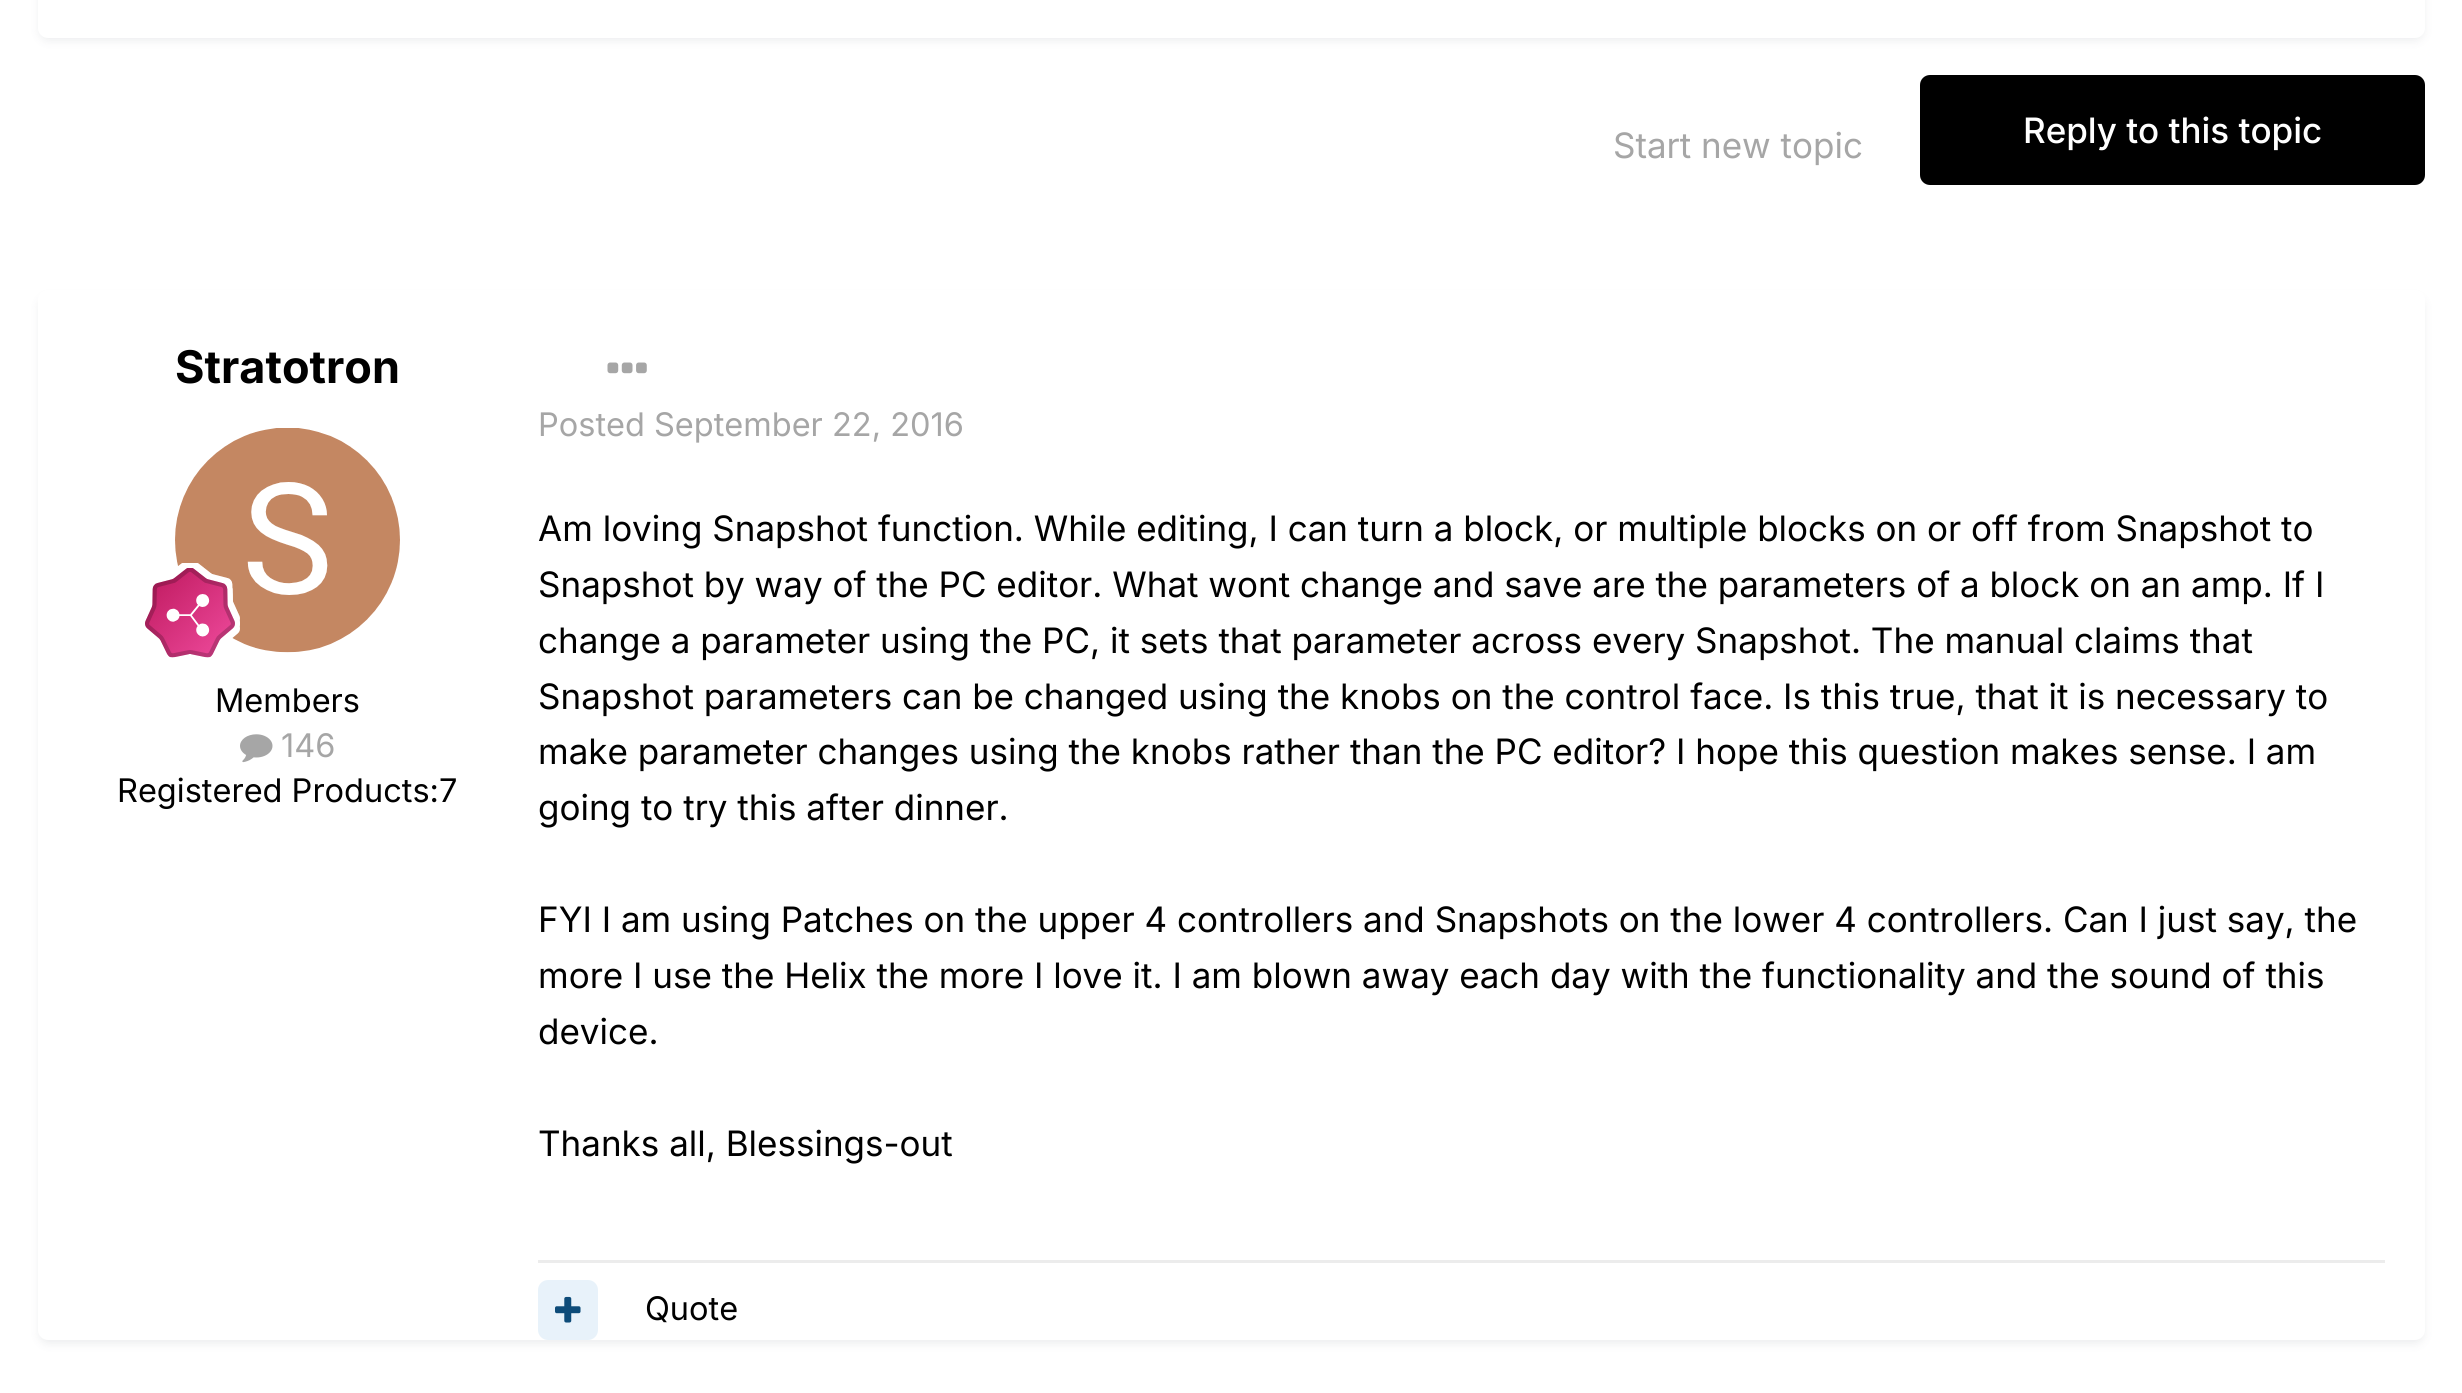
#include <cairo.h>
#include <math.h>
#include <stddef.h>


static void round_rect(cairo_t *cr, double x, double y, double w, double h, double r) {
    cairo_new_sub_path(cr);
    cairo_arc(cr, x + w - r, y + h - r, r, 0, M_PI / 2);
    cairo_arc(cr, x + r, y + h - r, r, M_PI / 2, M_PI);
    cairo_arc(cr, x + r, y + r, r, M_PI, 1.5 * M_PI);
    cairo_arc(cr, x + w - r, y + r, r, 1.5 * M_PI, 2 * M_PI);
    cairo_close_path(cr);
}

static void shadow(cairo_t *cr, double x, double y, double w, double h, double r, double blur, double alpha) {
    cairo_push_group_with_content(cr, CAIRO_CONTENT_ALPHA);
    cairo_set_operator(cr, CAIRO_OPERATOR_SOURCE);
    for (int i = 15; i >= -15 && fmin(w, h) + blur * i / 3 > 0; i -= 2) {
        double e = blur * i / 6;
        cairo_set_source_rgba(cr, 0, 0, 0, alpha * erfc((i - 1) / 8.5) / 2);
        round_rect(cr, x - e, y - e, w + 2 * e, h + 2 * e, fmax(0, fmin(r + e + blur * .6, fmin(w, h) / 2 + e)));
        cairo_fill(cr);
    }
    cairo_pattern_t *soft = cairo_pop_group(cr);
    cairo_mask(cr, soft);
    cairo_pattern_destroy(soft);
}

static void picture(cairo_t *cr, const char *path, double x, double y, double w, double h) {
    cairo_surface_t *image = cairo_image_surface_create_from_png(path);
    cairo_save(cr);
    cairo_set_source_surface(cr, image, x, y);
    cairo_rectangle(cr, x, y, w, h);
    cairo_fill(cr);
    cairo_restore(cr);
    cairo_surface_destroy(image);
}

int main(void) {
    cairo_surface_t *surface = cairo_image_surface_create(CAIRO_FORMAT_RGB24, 2462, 1393);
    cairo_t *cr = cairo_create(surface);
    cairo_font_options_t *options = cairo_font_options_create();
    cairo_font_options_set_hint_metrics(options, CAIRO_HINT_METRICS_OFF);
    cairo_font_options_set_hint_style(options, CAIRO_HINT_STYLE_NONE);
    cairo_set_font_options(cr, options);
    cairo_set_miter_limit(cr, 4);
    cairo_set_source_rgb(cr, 1, 1, 1);
    cairo_paint(cr);
    cairo_set_source_rgb(cr, 0.176, 0.216, 0.282);
    shadow(cr, 40, -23, 2383, 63, 8, 5, 0.1);
    cairo_set_source_rgb(cr, 1, 1, 1);
    round_rect(cr, 38, -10, 2387, 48, 10);
    cairo_fill(cr);
    cairo_select_font_face(cr, "Inter", CAIRO_FONT_SLANT_NORMAL, CAIRO_FONT_WEIGHT_NORMAL);
    cairo_set_font_size(cr, 35);
    cairo_set_source_rgb(cr, 0.651, 0.651, 0.651);
    cairo_move_to(cr, 1613, 158);
    cairo_show_text(cr, "Start new topic");
    cairo_set_source_rgb(cr, 0, 0, 0);
    round_rect(cr, 1920, 75, 505, 110, 10);
    cairo_fill(cr);
    cairo_select_font_face(cr, "Inter Medium", CAIRO_FONT_SLANT_NORMAL, CAIRO_FONT_WEIGHT_NORMAL);
    cairo_set_source_rgb(cr, 1, 1, 1);
    cairo_move_to(cr, 2023, 143);
    cairo_show_text(cr, "Reply to this topic");
    cairo_set_source_rgb(cr, 0.176, 0.216, 0.282);
    shadow(cr, 40, 298, 2383, 1045, 8, 5, 0.1);
    cairo_set_source_rgb(cr, 1, 1, 1);
    round_rect(cr, 38, 290, 2387, 1050, 10);
    cairo_fill(cr);
    cairo_select_font_face(cr, "Inter", CAIRO_FONT_SLANT_NORMAL, CAIRO_FONT_WEIGHT_BOLD);
    cairo_set_font_size(cr, 45);
    cairo_set_source_rgb(cr, 0, 0, 0);
    cairo_move_to(cr, 175, 383);
    cairo_show_text(cr, "Stratotron");
    picture(cr, "img1.png", 175, 428, 225, 225);
    picture(cr, "img2.png", 145, 563, 95, 95);
    cairo_select_font_face(cr, "Inter", CAIRO_FONT_SLANT_NORMAL, CAIRO_FONT_WEIGHT_NORMAL);
    cairo_set_font_size(cr, 32.5);
    cairo_move_to(cr, 215, 712);
    cairo_show_text(cr, "Members");
    picture(cr, "img3.png", 240, 734, 33, 29);
    cairo_set_source_rgb(cr, 0.651, 0.651, 0.651);
    cairo_move_to(cr, 281, 757);
    cairo_show_text(cr, "146");
    cairo_set_source_rgb(cr, 0, 0, 0);
    cairo_move_to(cr, 117, 802);
    cairo_show_text(cr, "Registered Products:7");
    picture(cr, "img4.png", 607, 362, 40, 12);
    cairo_set_source_rgb(cr, 0.651, 0.651, 0.651);
    cairo_move_to(cr, 538, 436);
    cairo_show_text(cr, "Posted September 22, 2016");
    cairo_set_font_size(cr, 35);
    cairo_set_source_rgb(cr, 0, 0, 0);
    cairo_move_to(cr, 538, 541);
    cairo_show_text(cr, "Am loving Snapshot function. While editing, I can turn a block, or multiple blocks on or off from Snapshot to");
    cairo_move_to(cr, 538, 597);
    cairo_show_text(cr, "Snapshot by way of the PC editor. What wont change and save are the parameters of a block on an amp. If I");
    cairo_move_to(cr, 538, 653);
    cairo_show_text(cr, "change a parameter using the PC, it sets that parameter across every Snapshot. The manual claims that");
    cairo_move_to(cr, 538, 709);
    cairo_show_text(cr, "Snapshot parameters can be changed using the knobs on the control face. Is this true, that it is necessary to");
    cairo_move_to(cr, 538, 764);
    cairo_show_text(cr, "make parameter changes using the knobs rather than the PC editor? I hope this question makes sense. I am");
    cairo_move_to(cr, 538, 820);
    cairo_show_text(cr, "going to try this after dinner.");
    cairo_move_to(cr, 538, 932);
    cairo_show_text(cr, "FYI I am using Patches on the upper 4 controllers and Snapshots on the lower 4 controllers. Can I just say, the");
    cairo_move_to(cr, 538, 988);
    cairo_show_text(cr, "more I use the Helix the more I love it. I am blown away each day with the functionality and the sound of this");
    cairo_move_to(cr, 538, 1044);
    cairo_show_text(cr, "device.");
    cairo_move_to(cr, 538, 1156);
    cairo_show_text(cr, "Thanks all, Blessings-out");
    cairo_set_source_rgb(cr, 0.925, 0.925, 0.925);
    cairo_rectangle(cr, 538, 1260, 1847, 3);
    cairo_fill(cr);
    cairo_set_source_rgb(cr, 0.91, 0.949, 0.98);
    round_rect(cr, 538, 1280, 60, 60, 10);
    cairo_fill(cr);
    picture(cr, "img5.png", 555, 1296, 26, 27);
    cairo_set_font_size(cr, 32.5);
    cairo_set_source_rgb(cr, 0, 0, 0);
    cairo_move_to(cr, 645, 1320);
    cairo_show_text(cr, "Quote");
    cairo_surface_write_to_png(surface, "page.png");
    cairo_font_options_destroy(options);
    cairo_destroy(cr);
    cairo_surface_destroy(surface);
    return 0;
}
